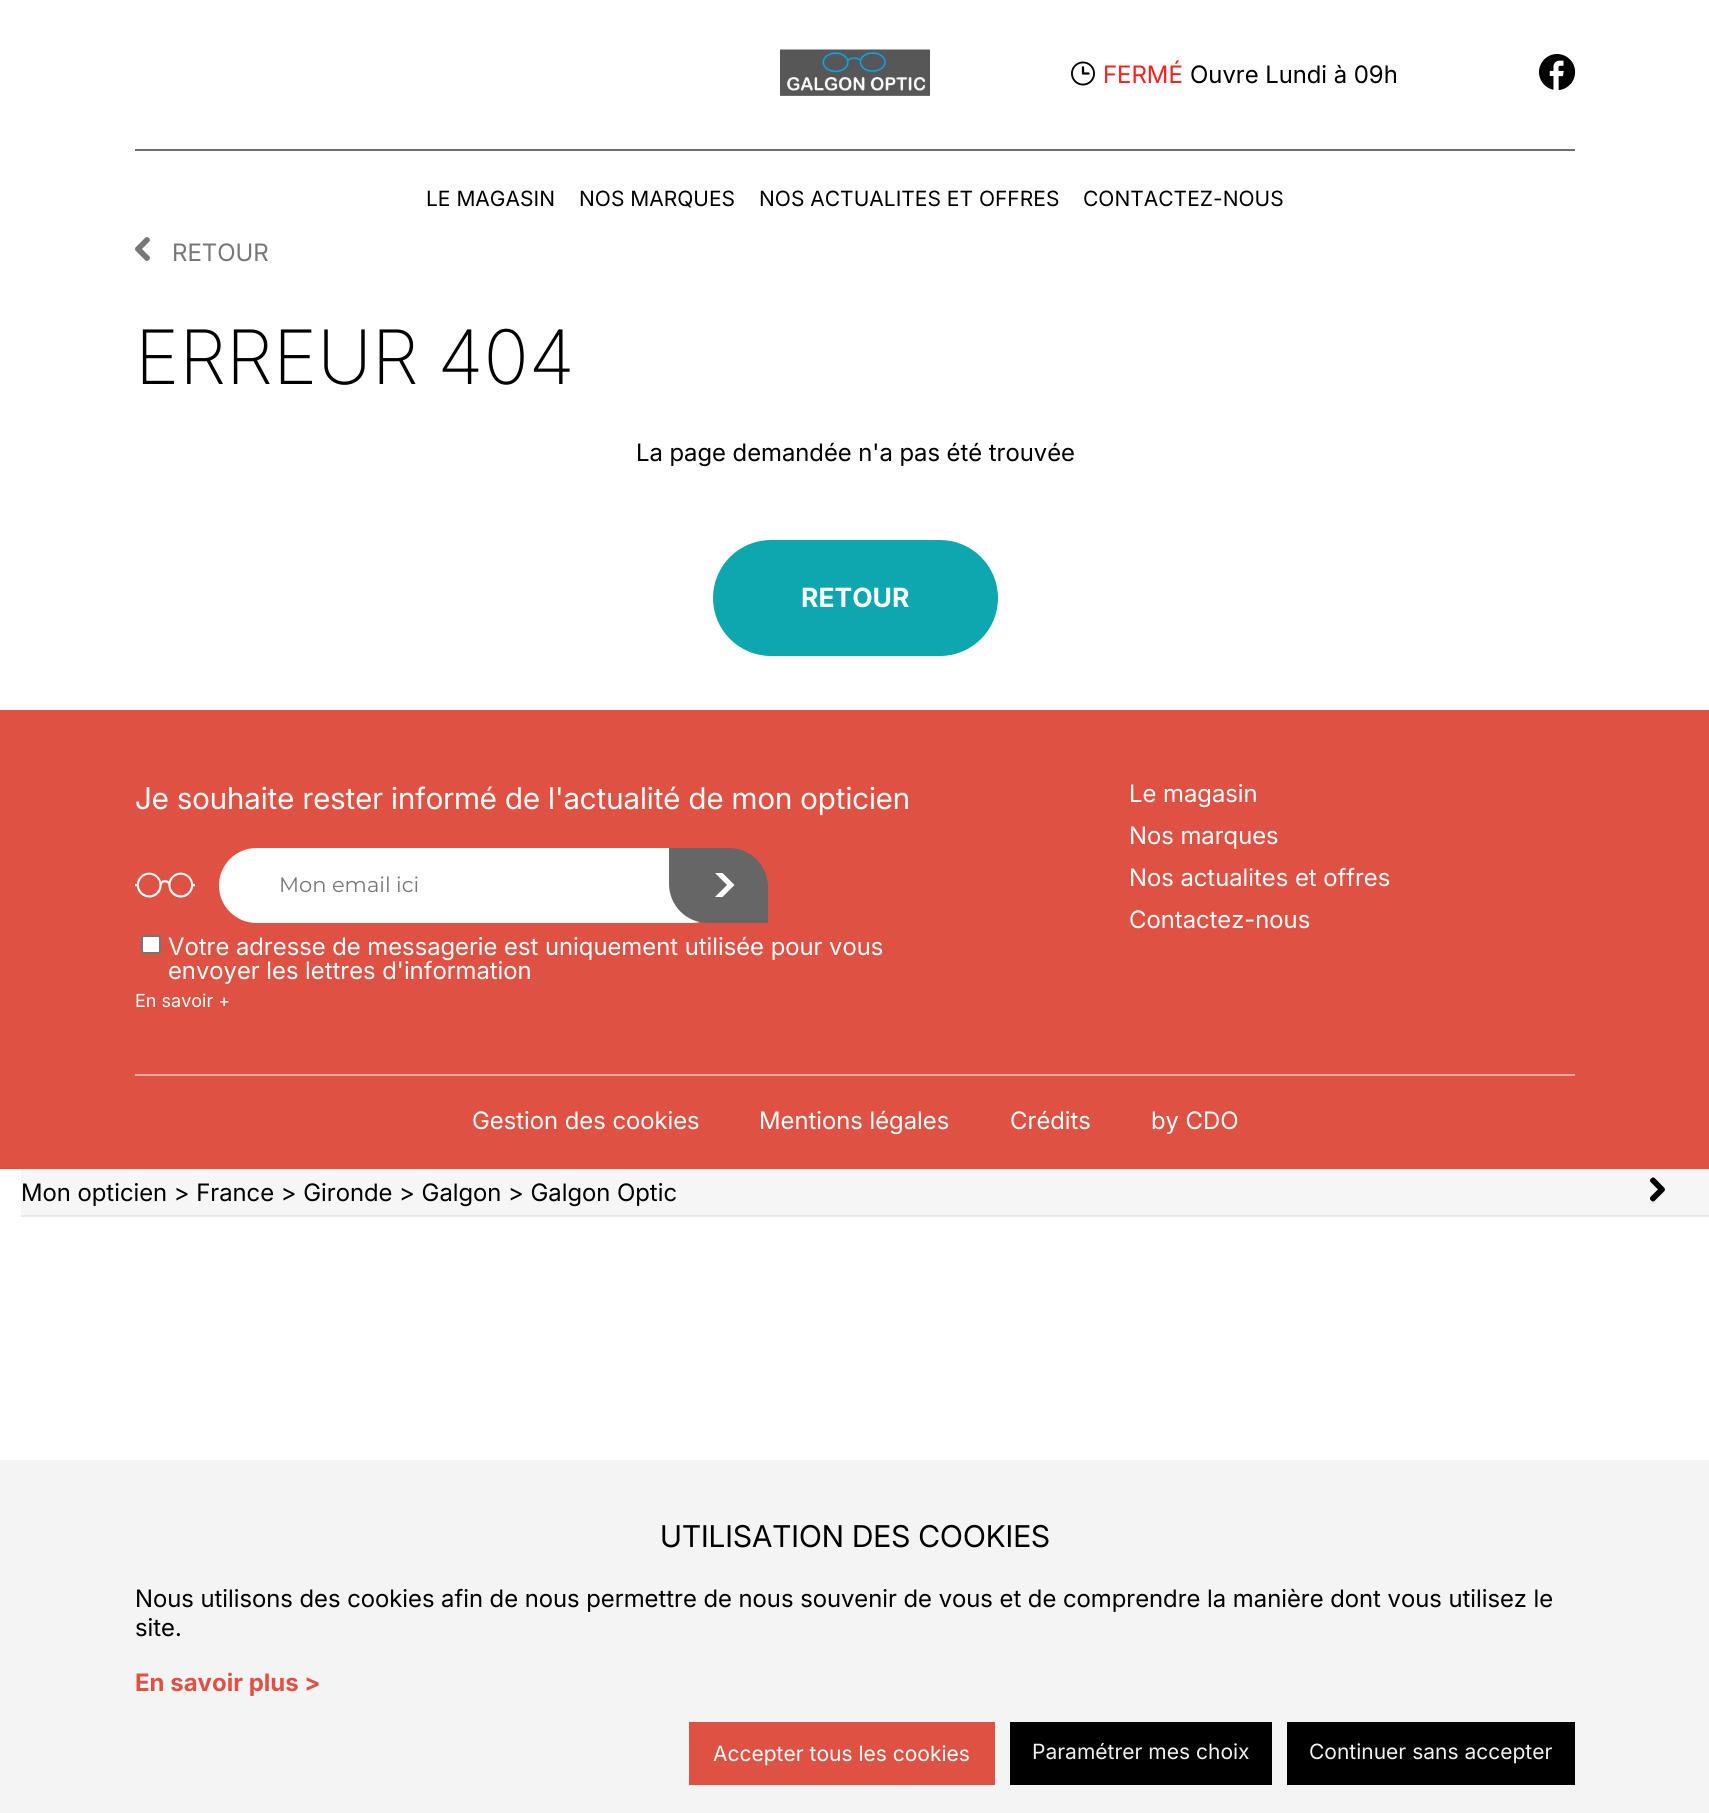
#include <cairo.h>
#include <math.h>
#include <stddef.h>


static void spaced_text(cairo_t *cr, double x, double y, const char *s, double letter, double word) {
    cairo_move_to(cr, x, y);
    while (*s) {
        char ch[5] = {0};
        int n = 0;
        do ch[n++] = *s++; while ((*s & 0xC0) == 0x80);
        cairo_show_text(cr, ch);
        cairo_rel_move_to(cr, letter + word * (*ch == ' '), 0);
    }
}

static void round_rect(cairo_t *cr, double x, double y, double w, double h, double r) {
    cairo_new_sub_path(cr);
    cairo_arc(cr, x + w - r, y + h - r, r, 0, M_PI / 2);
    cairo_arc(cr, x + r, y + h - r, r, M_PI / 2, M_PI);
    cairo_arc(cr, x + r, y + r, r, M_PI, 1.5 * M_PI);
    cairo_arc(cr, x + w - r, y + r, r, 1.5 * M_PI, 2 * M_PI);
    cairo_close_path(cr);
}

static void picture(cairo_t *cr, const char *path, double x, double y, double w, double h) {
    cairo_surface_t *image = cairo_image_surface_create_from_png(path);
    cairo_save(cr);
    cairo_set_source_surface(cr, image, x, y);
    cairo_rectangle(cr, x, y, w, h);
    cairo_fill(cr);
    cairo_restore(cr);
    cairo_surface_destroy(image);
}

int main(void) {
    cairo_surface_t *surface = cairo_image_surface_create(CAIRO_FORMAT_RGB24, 1709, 1813);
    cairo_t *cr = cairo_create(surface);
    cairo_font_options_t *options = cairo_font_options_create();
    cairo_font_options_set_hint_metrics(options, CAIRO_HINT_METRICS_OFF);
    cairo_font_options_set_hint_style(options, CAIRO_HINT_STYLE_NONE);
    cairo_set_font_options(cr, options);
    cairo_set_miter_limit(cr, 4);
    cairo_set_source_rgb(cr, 1, 1, 1);
    cairo_paint(cr);
    cairo_set_source_rgb(cr, 0.439, 0.439, 0.439);
    cairo_rectangle(cr, 135, 149, 1440, 2);
    cairo_fill(cr);
    picture(cr, "img1.png", 780, 49, 150, 47);
    picture(cr, "img2.png", 1071, 61, 24, 25);
    cairo_select_font_face(cr, "Inter", CAIRO_FONT_SLANT_NORMAL, CAIRO_FONT_WEIGHT_NORMAL);
    cairo_set_font_size(cr, 24);
    cairo_set_source_rgb(cr, 0.992, 0.122, 0.122);
    cairo_move_to(cr, 1103, 83);
    cairo_show_text(cr, "FERMÉ");
    cairo_set_source_rgb(cr, 0, 0, 0);
    cairo_move_to(cr, 1190, 83);
    cairo_show_text(cr, "Ouvre Lundi à 09h");
    picture(cr, "img3.png", 1539, 54, 37, 37);
    cairo_select_font_face(cr, "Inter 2", CAIRO_FONT_SLANT_NORMAL, CAIRO_FONT_WEIGHT_NORMAL);
    cairo_set_font_size(cr, 21);
    cairo_move_to(cr, 426, 206);
    cairo_show_text(cr, "LE MAGASIN");
    cairo_move_to(cr, 579, 206);
    cairo_show_text(cr, "NOS MARQUES");
    cairo_move_to(cr, 759, 206);
    cairo_show_text(cr, "NOS ACTUALITES ET OFFRES");
    cairo_move_to(cr, 1083, 206);
    cairo_show_text(cr, "CONTACTEZ-NOUS");
    picture(cr, "img4.png", 135, 237, 15, 24);
    cairo_select_font_face(cr, "Inter", CAIRO_FONT_SLANT_NORMAL, CAIRO_FONT_WEIGHT_NORMAL);
    cairo_set_font_size(cr, 24);
    cairo_set_source_rgb(cr, 0.467, 0.467, 0.467);
    cairo_move_to(cr, 172, 261);
    cairo_show_text(cr, "RETOUR");
    cairo_select_font_face(cr, "Inter ExtraLight", CAIRO_FONT_SLANT_NORMAL, CAIRO_FONT_WEIGHT_NORMAL);
    cairo_set_font_size(cr, 75);
    cairo_set_source_rgb(cr, 0, 0, 0);
    spaced_text(cr, 135, 384, "ERREUR 404", 0, -2);
    cairo_select_font_face(cr, "Inter", CAIRO_FONT_SLANT_NORMAL, CAIRO_FONT_WEIGHT_NORMAL);
    cairo_set_font_size(cr, 24);
    cairo_move_to(cr, 636, 461);
    cairo_show_text(cr, "La page demandée n'a pas été trouvée");
    cairo_set_source_rgb(cr, 0.055, 0.651, 0.686);
    round_rect(cr, 714, 541, 283, 114, 57);
    cairo_fill_preserve(cr);
    cairo_stroke(cr);
    cairo_select_font_face(cr, "Inter", CAIRO_FONT_SLANT_NORMAL, CAIRO_FONT_WEIGHT_BOLD);
    cairo_set_font_size(cr, 26.5);
    cairo_set_source_rgb(cr, 1, 1, 1);
    cairo_move_to(cr, 801, 607);
    cairo_show_text(cr, "RETOUR");
    cairo_set_source_rgb(cr, 0.875, 0.318, 0.263);
    cairo_rectangle(cr, 0, 710, 1709, 459);
    cairo_fill(cr);
    cairo_select_font_face(cr, "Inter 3", CAIRO_FONT_SLANT_NORMAL, CAIRO_FONT_WEIGHT_NORMAL);
    cairo_set_font_size(cr, 30);
    cairo_set_source_rgb(cr, 1, 1, 1);
    cairo_move_to(cr, 135, 809);
    cairo_show_text(cr, "Je souhaite rester informé de l'actualité de mon opticien");
    picture(cr, "img5.png", 135, 872, 60, 26);
    round_rect(cr, 219, 848, 510, 75, 37.5);
    cairo_fill(cr);
    cairo_select_font_face(cr, "Montserrat", CAIRO_FONT_SLANT_NORMAL, CAIRO_FONT_WEIGHT_NORMAL);
    cairo_set_font_size(cr, 21);
    cairo_set_source_rgb(cr, 0.467, 0.467, 0.467);
    cairo_move_to(cr, 279, 892);
    cairo_show_text(cr, "Mon email ici");
    cairo_set_source_rgb(cr, 0.4, 0.4, 0.4);
    cairo_new_path(cr);
    cairo_move_to(cr, 669, 848);
    cairo_line_to(cr, 729, 848);
    cairo_curve_to(cr, 750.5, 848, 768, 865.5, 768, 887);
    cairo_line_to(cr, 768, 923);
    cairo_line_to(cr, 708, 923);
    cairo_curve_to(cr, 686.5, 923, 669, 905.5, 669, 884);
    cairo_close_path(cr);
    cairo_fill(cr);
    cairo_set_source_rgb(cr, 1, 1, 1);
    cairo_new_path(cr);
    cairo_move_to(cr, 715, 873);
    cairo_line_to(cr, 722.5, 873);
    cairo_line_to(cr, 734.5, 885);
    cairo_line_to(cr, 722.5, 897);
    cairo_line_to(cr, 715, 897);
    cairo_line_to(cr, 727, 885);
    cairo_close_path(cr);
    cairo_fill(cr);
    round_rect(cr, 142, 936, 18, 17, 2);
    cairo_fill_preserve(cr);
    cairo_set_source_rgb(cr, 0.463, 0.463, 0.463);
    cairo_stroke(cr);
    cairo_select_font_face(cr, "Inter", CAIRO_FONT_SLANT_NORMAL, CAIRO_FONT_WEIGHT_NORMAL);
    cairo_set_font_size(cr, 24);
    cairo_set_source_rgb(cr, 1, 1, 1);
    cairo_move_to(cr, 168, 955);
    cairo_show_text(cr, "Votre adresse de messagerie est uniquement utilisée pour vous");
    cairo_move_to(cr, 168, 979);
    cairo_show_text(cr, "envoyer les lettres d'information");
    cairo_select_font_face(cr, "Inter 2", CAIRO_FONT_SLANT_NORMAL, CAIRO_FONT_WEIGHT_NORMAL);
    cairo_set_font_size(cr, 18);
    cairo_move_to(cr, 135, 1007);
    cairo_show_text(cr, "En savoir +");
    cairo_select_font_face(cr, "Inter", CAIRO_FONT_SLANT_NORMAL, CAIRO_FONT_WEIGHT_NORMAL);
    cairo_set_font_size(cr, 24);
    cairo_move_to(cr, 1129, 802);
    cairo_show_text(cr, "Le magasin");
    cairo_move_to(cr, 1129, 844);
    cairo_show_text(cr, "Nos marques");
    cairo_move_to(cr, 1129, 886);
    cairo_show_text(cr, "Nos actualites et offres");
    cairo_move_to(cr, 1129, 928);
    cairo_show_text(cr, "Contactez-nous");
    cairo_set_source_rgb(cr, 0.937, 0.659, 0.631);
    cairo_rectangle(cr, 135, 1074, 1440, 2);
    cairo_fill(cr);
    cairo_set_source_rgb(cr, 1, 1, 1);
    cairo_move_to(cr, 472, 1129);
    cairo_show_text(cr, "Gestion des cookies");
    cairo_move_to(cr, 759, 1129);
    cairo_show_text(cr, "Mentions légales");
    cairo_move_to(cr, 1010, 1129);
    cairo_show_text(cr, "Crédits");
    cairo_move_to(cr, 1151, 1129);
    cairo_show_text(cr, "by CDO");
    cairo_set_source_rgb(cr, 0.961, 0.961, 0.961);
    cairo_rectangle(cr, 21, 1169, 1688, 46);
    cairo_fill(cr);
    cairo_set_source_rgb(cr, 0.914, 0.914, 0.914);
    cairo_rectangle(cr, 21, 1215, 1688, 2);
    cairo_fill(cr);
    cairo_set_source_rgb(cr, 0, 0, 0);
    cairo_move_to(cr, 21, 1201);
    cairo_show_text(cr, "Mon opticien > France > Gironde > Galgon > Galgon Optic");
    picture(cr, "img6.png", 1649, 1177, 16, 25);
    cairo_set_source_rgb(cr, 0.957, 0.957, 0.957);
    cairo_rectangle(cr, 0, 1460, 1709, 353);
    cairo_fill(cr);
    cairo_select_font_face(cr, "Inter 3", CAIRO_FONT_SLANT_NORMAL, CAIRO_FONT_WEIGHT_NORMAL);
    cairo_set_font_size(cr, 30);
    cairo_set_source_rgb(cr, 0, 0, 0);
    cairo_move_to(cr, 660, 1547);
    cairo_show_text(cr, "UTILISATION DES COOKIES");
    cairo_select_font_face(cr, "Inter", CAIRO_FONT_SLANT_NORMAL, CAIRO_FONT_WEIGHT_NORMAL);
    cairo_set_font_size(cr, 24);
    cairo_move_to(cr, 135, 1607);
    cairo_show_text(cr, "Nous utilisons des cookies afin de nous permettre de nous souvenir de vous et de comprendre la manière dont vous utilisez le");
    cairo_move_to(cr, 135, 1636);
    cairo_show_text(cr, "site.");
    cairo_select_font_face(cr, "Inter", CAIRO_FONT_SLANT_NORMAL, CAIRO_FONT_WEIGHT_BOLD);
    cairo_set_source_rgb(cr, 0.875, 0.318, 0.263);
    cairo_move_to(cr, 135, 1691);
    cairo_show_text(cr, "En savoir plus >");
    cairo_rectangle(cr, 689, 1722, 306, 63);
    cairo_fill(cr);
    cairo_select_font_face(cr, "Inter 2", CAIRO_FONT_SLANT_NORMAL, CAIRO_FONT_WEIGHT_NORMAL);
    cairo_set_font_size(cr, 21);
    cairo_set_source_rgb(cr, 1, 1, 1);
    cairo_move_to(cr, 713, 1761);
    cairo_show_text(cr, "Accepter tous les cookies");
    cairo_set_source_rgb(cr, 0, 0, 0);
    cairo_rectangle(cr, 1010, 1722, 262, 63);
    cairo_fill(cr);
    cairo_set_source_rgb(cr, 0.949, 0.949, 0.945);
    cairo_move_to(cr, 1032, 1759);
    cairo_show_text(cr, "Paramétrer mes choix");
    cairo_set_source_rgb(cr, 0, 0, 0);
    cairo_rectangle(cr, 1287, 1722, 288, 63);
    cairo_fill(cr);
    cairo_set_source_rgb(cr, 0.949, 0.949, 0.945);
    cairo_move_to(cr, 1309, 1759);
    cairo_show_text(cr, "Continuer sans accepter");
    cairo_surface_write_to_png(surface, "page.png");
    cairo_font_options_destroy(options);
    cairo_destroy(cr);
    cairo_surface_destroy(surface);
    return 0;
}
